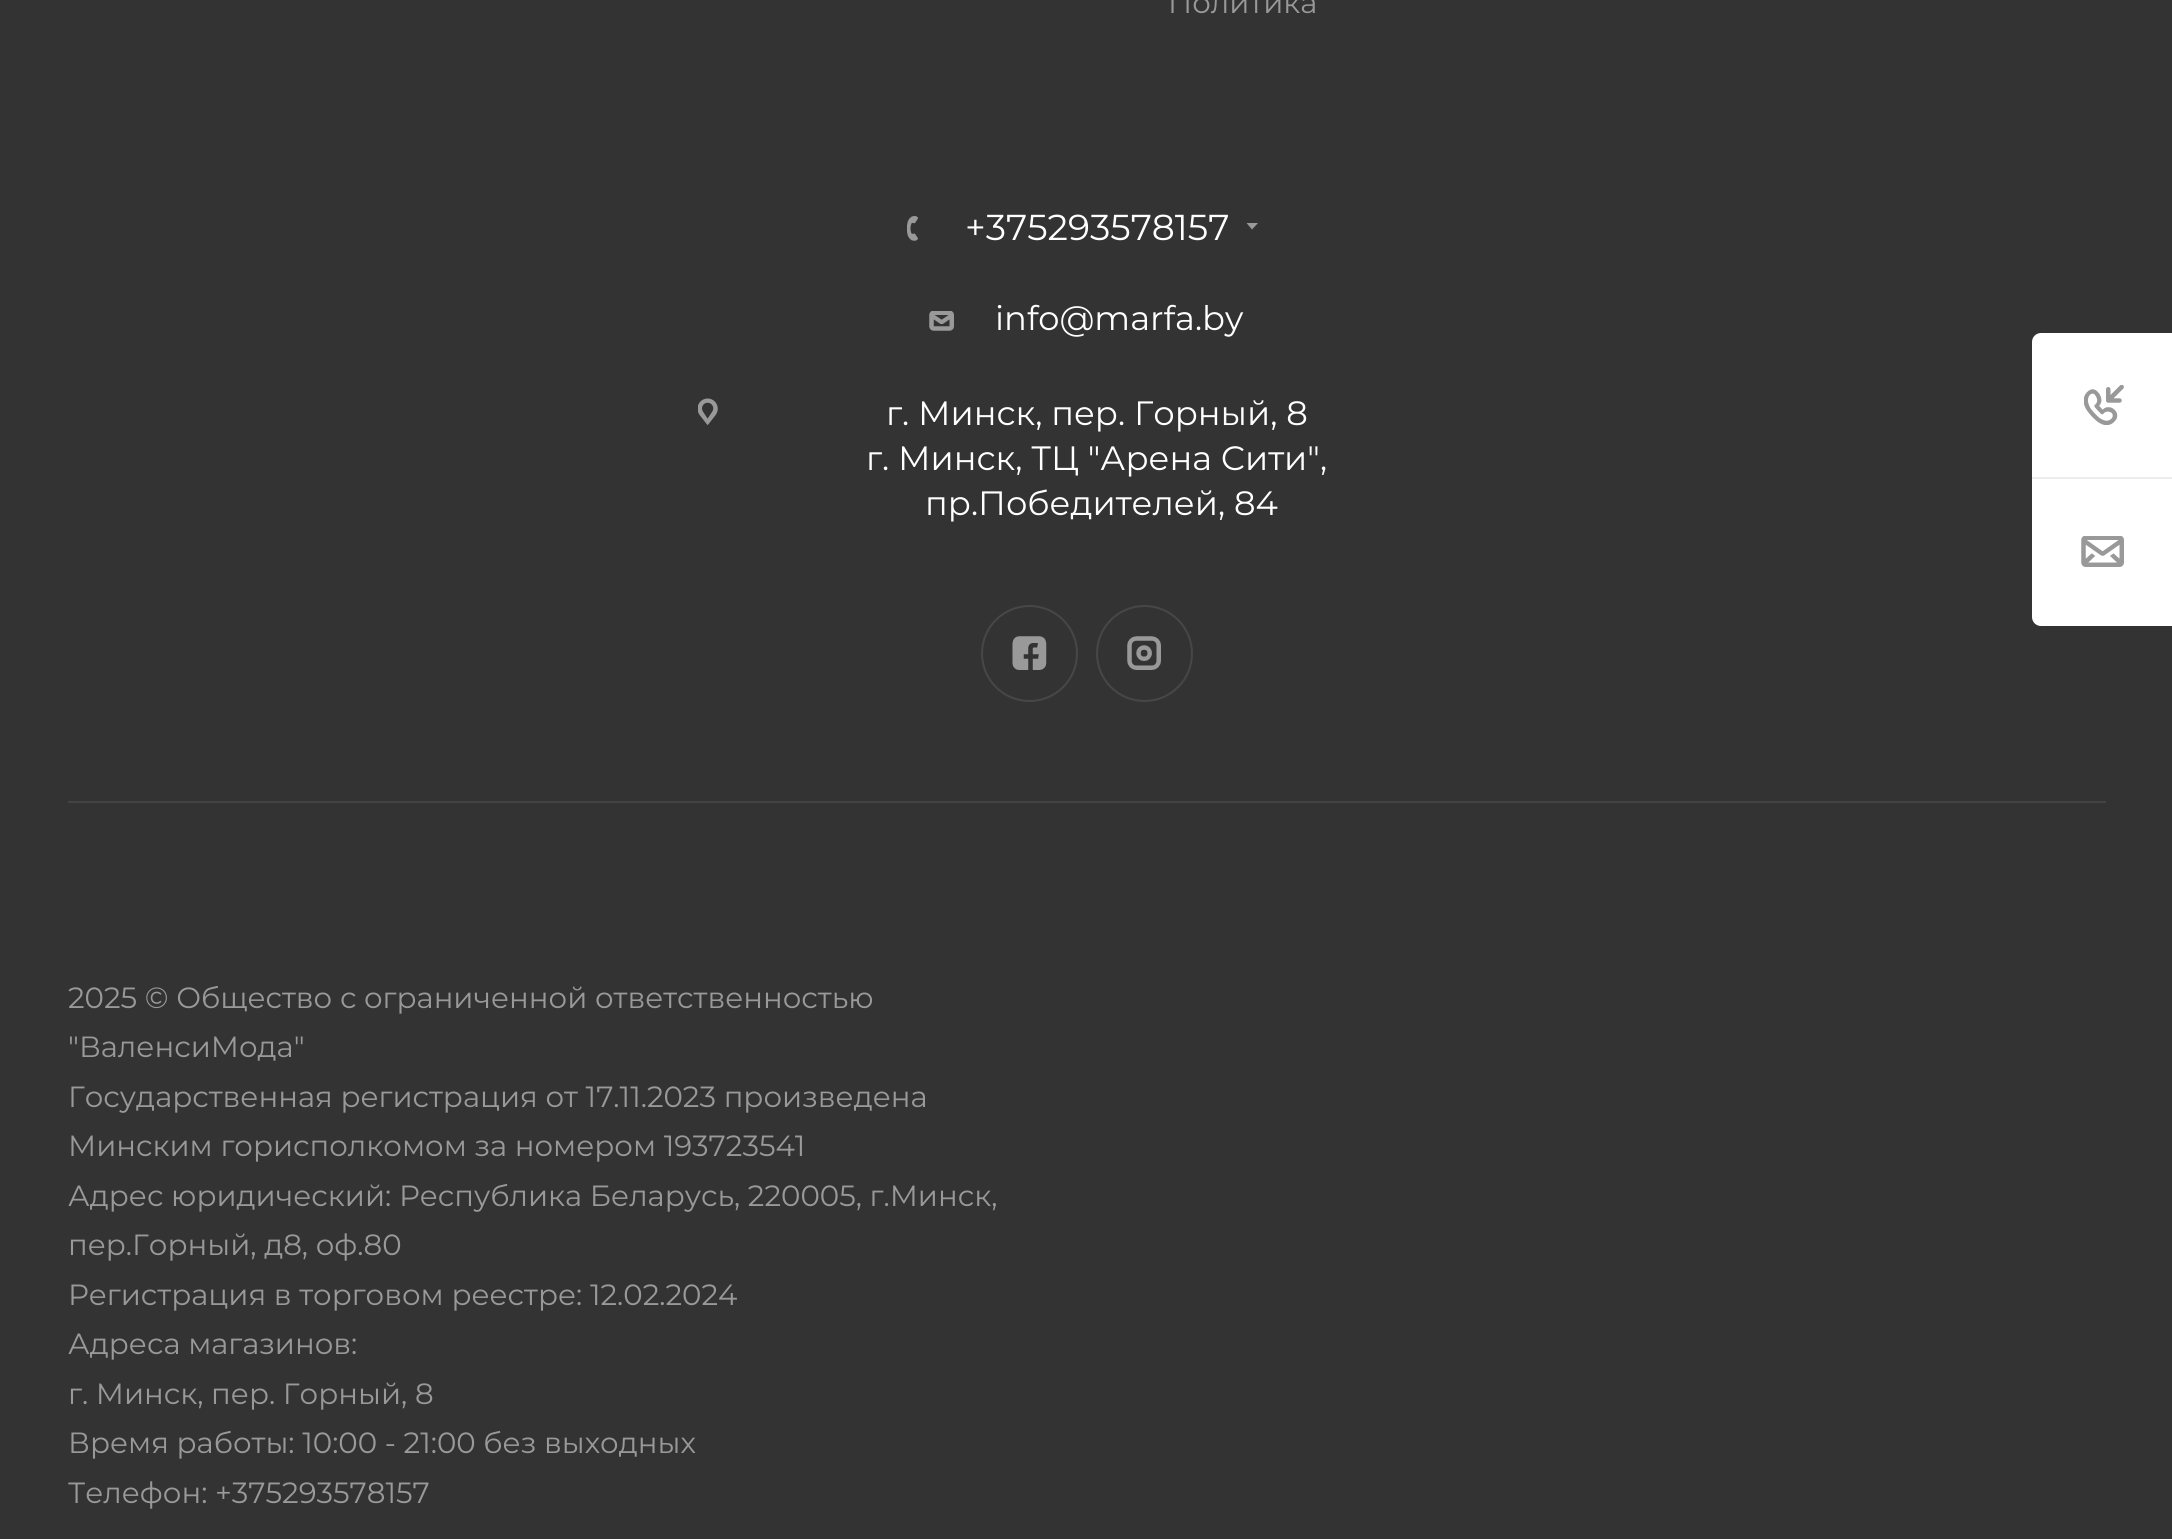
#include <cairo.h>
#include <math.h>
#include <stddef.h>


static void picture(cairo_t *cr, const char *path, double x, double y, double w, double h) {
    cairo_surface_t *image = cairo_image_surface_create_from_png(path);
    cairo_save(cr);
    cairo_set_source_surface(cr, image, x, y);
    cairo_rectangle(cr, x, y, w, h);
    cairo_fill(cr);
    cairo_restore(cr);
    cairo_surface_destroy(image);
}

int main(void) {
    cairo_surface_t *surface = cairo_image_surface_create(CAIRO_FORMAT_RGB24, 2172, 1539);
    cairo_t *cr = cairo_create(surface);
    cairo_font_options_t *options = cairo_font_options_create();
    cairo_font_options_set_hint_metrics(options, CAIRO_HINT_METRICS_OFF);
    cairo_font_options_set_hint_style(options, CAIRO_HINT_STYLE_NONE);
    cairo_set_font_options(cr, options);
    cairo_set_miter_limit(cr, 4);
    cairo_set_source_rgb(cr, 0.2, 0.2, 0.2);
    cairo_paint(cr);
    cairo_select_font_face(cr, "Montserrat", CAIRO_FONT_SLANT_NORMAL, CAIRO_FONT_WEIGHT_NORMAL);
    cairo_set_font_size(cr, 29.25);
    cairo_set_source_rgb(cr, 0.6, 0.6, 0.6);
    cairo_move_to(cr, 1168, 13);
    cairo_show_text(cr, "Политика");
    picture(cr, "img1.png", 907, 216, 11, 25);
    cairo_set_font_size(cr, 36);
    cairo_set_source_rgb(cr, 1, 1, 1);
    cairo_move_to(cr, 965, 240);
    cairo_show_text(cr, "+375293578157");
    cairo_set_source_rgb(cr, 0.6, 0.6, 0.6);
    cairo_set_fill_rule(cr, CAIRO_FILL_RULE_EVEN_ODD);
    cairo_new_path(cr);
    cairo_move_to(cr, 1246.5, 223);
    cairo_line_to(cr, 1258, 223);
    cairo_line_to(cr, 1252, 229.5);
    cairo_close_path(cr);
    cairo_fill(cr);
    picture(cr, "img2.png", 929, 311, 25, 20);
    cairo_set_font_size(cr, 33.75);
    cairo_set_source_rgb(cr, 1, 1, 1);
    cairo_move_to(cr, 995, 330);
    cairo_show_text(cr, "info@marfa.by");
    picture(cr, "img3.png", 698, 398, 20, 27);
    cairo_move_to(cr, 886, 425);
    cairo_show_text(cr, "г. Минск, пер. Горный, 8");
    cairo_move_to(cr, 866, 470);
    cairo_show_text(cr, "г. Минск, ТЦ \"Арена Сити\",");
    cairo_move_to(cr, 925, 515);
    cairo_show_text(cr, "пр.Победителей, 84");
    picture(cr, "img4.png", 1012, 636, 35, 34);
    cairo_arc(cr, 1029.5, 653.5, 47.5, 0, 2 * M_PI);
    cairo_set_source_rgb(cr, 0.278, 0.278, 0.278);
    cairo_stroke(cr);
    picture(cr, "img5.png", 1127, 636, 34, 34);
    cairo_arc(cr, 1144.5, 653.5, 47.5, 0, 2 * M_PI);
    cairo_stroke(cr);
    cairo_set_source_rgb(cr, 0.263, 0.263, 0.263);
    cairo_rectangle(cr, 68, 801, 2038, 2);
    cairo_fill(cr);
    cairo_set_font_size(cr, 29.25);
    cairo_set_source_rgb(cr, 0.6, 0.6, 0.6);
    cairo_move_to(cr, 68, 1008);
    cairo_show_text(cr, "2025 © Общество с ограниченной ответственностью");
    cairo_move_to(cr, 68, 1057);
    cairo_show_text(cr, "\"ВаленсиМода\"");
    cairo_move_to(cr, 68, 1107);
    cairo_show_text(cr, "Государственная регистрация от 17.11.2023 произведена");
    cairo_move_to(cr, 68, 1156);
    cairo_show_text(cr, "Минским горисполкомом за номером 193723541");
    cairo_move_to(cr, 68, 1206);
    cairo_show_text(cr, "Адрес юридический: Республика Беларусь, 220005, г.Минск,");
    cairo_move_to(cr, 68, 1255);
    cairo_show_text(cr, "пер.Горный, д8, оф.80");
    cairo_move_to(cr, 68, 1305);
    cairo_show_text(cr, "Регистрация в торговом реестре: 12.02.2024");
    cairo_move_to(cr, 68, 1354);
    cairo_show_text(cr, "Адреса магазинов:");
    cairo_move_to(cr, 68, 1404);
    cairo_show_text(cr, "г. Минск, пер. Горный, 8");
    cairo_move_to(cr, 68, 1453);
    cairo_show_text(cr, "Время работы: 10:00 - 21:00 без выходных");
    cairo_move_to(cr, 68, 1503);
    cairo_show_text(cr, "Телефон: +375293578157");
    cairo_set_source_rgb(cr, 1, 1, 1);
    cairo_new_path(cr);
    cairo_move_to(cr, 2041, 333);
    cairo_line_to(cr, 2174, 333);
    cairo_line_to(cr, 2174, 626);
    cairo_line_to(cr, 2041, 626);
    cairo_curve_to(cr, 2036, 626, 2032, 622, 2032, 617);
    cairo_line_to(cr, 2032, 342);
    cairo_curve_to(cr, 2032, 337, 2036, 333, 2041, 333);
    cairo_close_path(cr);
    cairo_fill(cr);
    cairo_set_source_rgb(cr, 0.925, 0.925, 0.925);
    cairo_rectangle(cr, 2032, 477, 140, 2);
    cairo_fill(cr);
    picture(cr, "img6.png", 2084, 385, 40, 40);
    picture(cr, "img7.png", 2081, 536, 43, 31);
    cairo_surface_write_to_png(surface, "page.png");
    cairo_font_options_destroy(options);
    cairo_destroy(cr);
    cairo_surface_destroy(surface);
    return 0;
}
